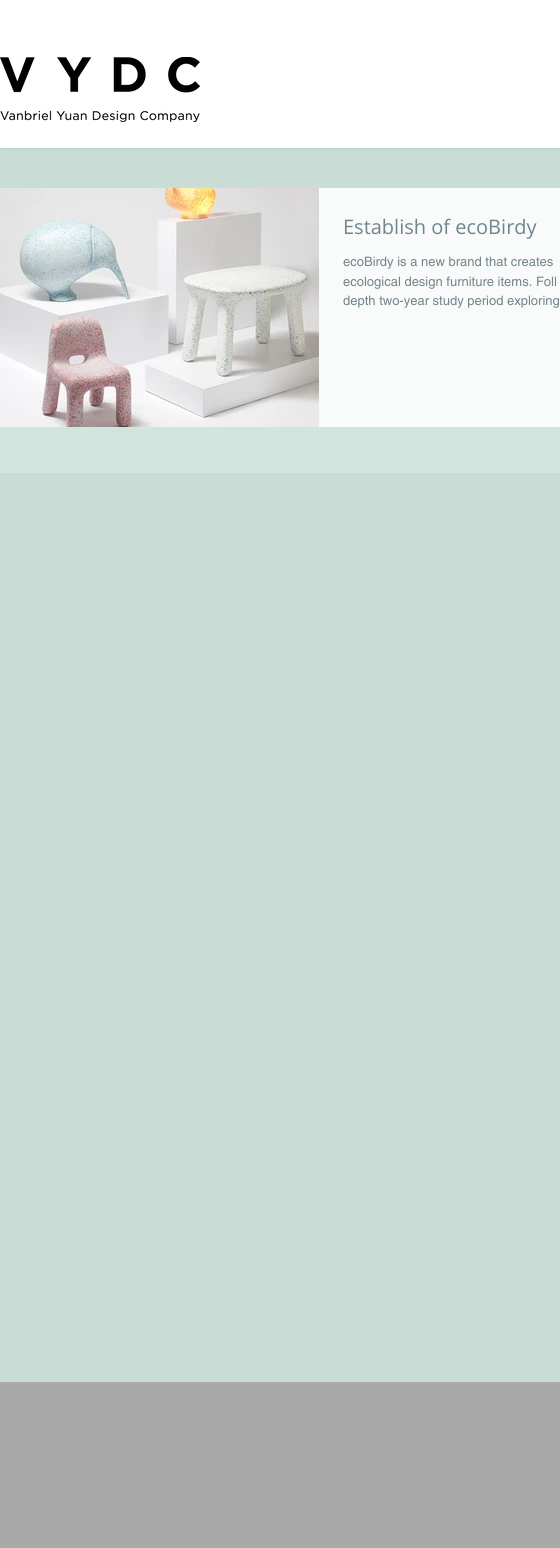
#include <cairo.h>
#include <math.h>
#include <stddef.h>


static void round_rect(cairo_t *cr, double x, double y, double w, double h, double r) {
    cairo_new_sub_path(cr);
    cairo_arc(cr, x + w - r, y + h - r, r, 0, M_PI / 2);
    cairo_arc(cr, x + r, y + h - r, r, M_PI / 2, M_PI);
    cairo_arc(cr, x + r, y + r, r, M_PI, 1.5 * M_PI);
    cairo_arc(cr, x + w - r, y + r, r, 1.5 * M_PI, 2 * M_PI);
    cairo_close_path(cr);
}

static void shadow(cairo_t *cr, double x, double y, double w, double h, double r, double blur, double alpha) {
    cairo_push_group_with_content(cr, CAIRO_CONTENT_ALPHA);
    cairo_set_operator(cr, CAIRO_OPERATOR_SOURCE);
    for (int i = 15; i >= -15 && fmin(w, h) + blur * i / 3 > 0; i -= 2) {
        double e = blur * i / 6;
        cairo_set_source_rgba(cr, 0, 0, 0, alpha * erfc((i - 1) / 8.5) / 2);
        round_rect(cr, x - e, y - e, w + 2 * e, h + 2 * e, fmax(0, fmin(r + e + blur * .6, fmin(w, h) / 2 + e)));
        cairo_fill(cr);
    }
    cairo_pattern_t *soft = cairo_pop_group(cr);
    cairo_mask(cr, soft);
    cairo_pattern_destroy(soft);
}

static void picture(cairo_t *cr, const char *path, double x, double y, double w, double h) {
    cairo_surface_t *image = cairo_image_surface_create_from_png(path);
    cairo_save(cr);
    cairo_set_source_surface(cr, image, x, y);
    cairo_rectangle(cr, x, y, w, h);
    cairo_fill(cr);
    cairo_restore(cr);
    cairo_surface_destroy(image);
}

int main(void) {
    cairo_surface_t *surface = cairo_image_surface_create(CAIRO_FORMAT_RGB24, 560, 1548);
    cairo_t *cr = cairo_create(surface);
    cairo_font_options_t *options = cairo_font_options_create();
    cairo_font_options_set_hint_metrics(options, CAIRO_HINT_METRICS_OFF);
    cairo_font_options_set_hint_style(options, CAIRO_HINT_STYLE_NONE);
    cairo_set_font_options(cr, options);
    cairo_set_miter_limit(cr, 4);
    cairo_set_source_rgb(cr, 0.663, 0.663, 0.663);
    cairo_paint(cr);
    cairo_set_source_rgb(cr, 0.792, 0.863, 0.839);
    cairo_rectangle(cr, 0, 148, 560, 1234);
    cairo_fill(cr);
    cairo_set_source_rgb(cr, 0.694, 0.765, 0.741);
    shadow(cr, 0, 0, 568, 148, 0, 2.5, 0.7);
    cairo_set_source_rgb(cr, 1, 1, 1);
    cairo_rectangle(cr, 0, 0, 560, 148);
    cairo_fill(cr);
    picture(cr, "img1.png", 0, 57, 200, 65);
    cairo_set_source_rgb(cr, 0.816, 0.898, 0.871);
    cairo_rectangle(cr, 0, 427, 560, 46);
    cairo_fill(cr);
    picture(cr, "img2.png", 0, 188, 319, 239);
    cairo_set_source_rgb(cr, 0.973, 0.984, 0.98);
    cairo_rectangle(cr, 319, 188, 241, 239);
    cairo_fill(cr);
    cairo_select_font_face(cr, "Open Sans", CAIRO_FONT_SLANT_NORMAL, CAIRO_FONT_WEIGHT_NORMAL);
    cairo_set_font_size(cr, 20);
    cairo_set_source_rgb(cr, 0.447, 0.522, 0.549);
    cairo_move_to(cr, 343, 234);
    cairo_show_text(cr, "Establish of ecoBirdy");
    cairo_select_font_face(cr, "helvetica", CAIRO_FONT_SLANT_NORMAL, CAIRO_FONT_WEIGHT_NORMAL);
    cairo_set_font_size(cr, 13);
    cairo_move_to(cr, 343, 266);
    cairo_show_text(cr, "ecoBirdy is a new brand that creates");
    cairo_move_to(cr, 343, 286);
    cairo_show_text(cr, "ecological design furniture items. Foll");
    cairo_move_to(cr, 343, 305);
    cairo_show_text(cr, "depth two-year study period exploring");
    cairo_surface_write_to_png(surface, "page.png");
    cairo_font_options_destroy(options);
    cairo_destroy(cr);
    cairo_surface_destroy(surface);
    return 0;
}
